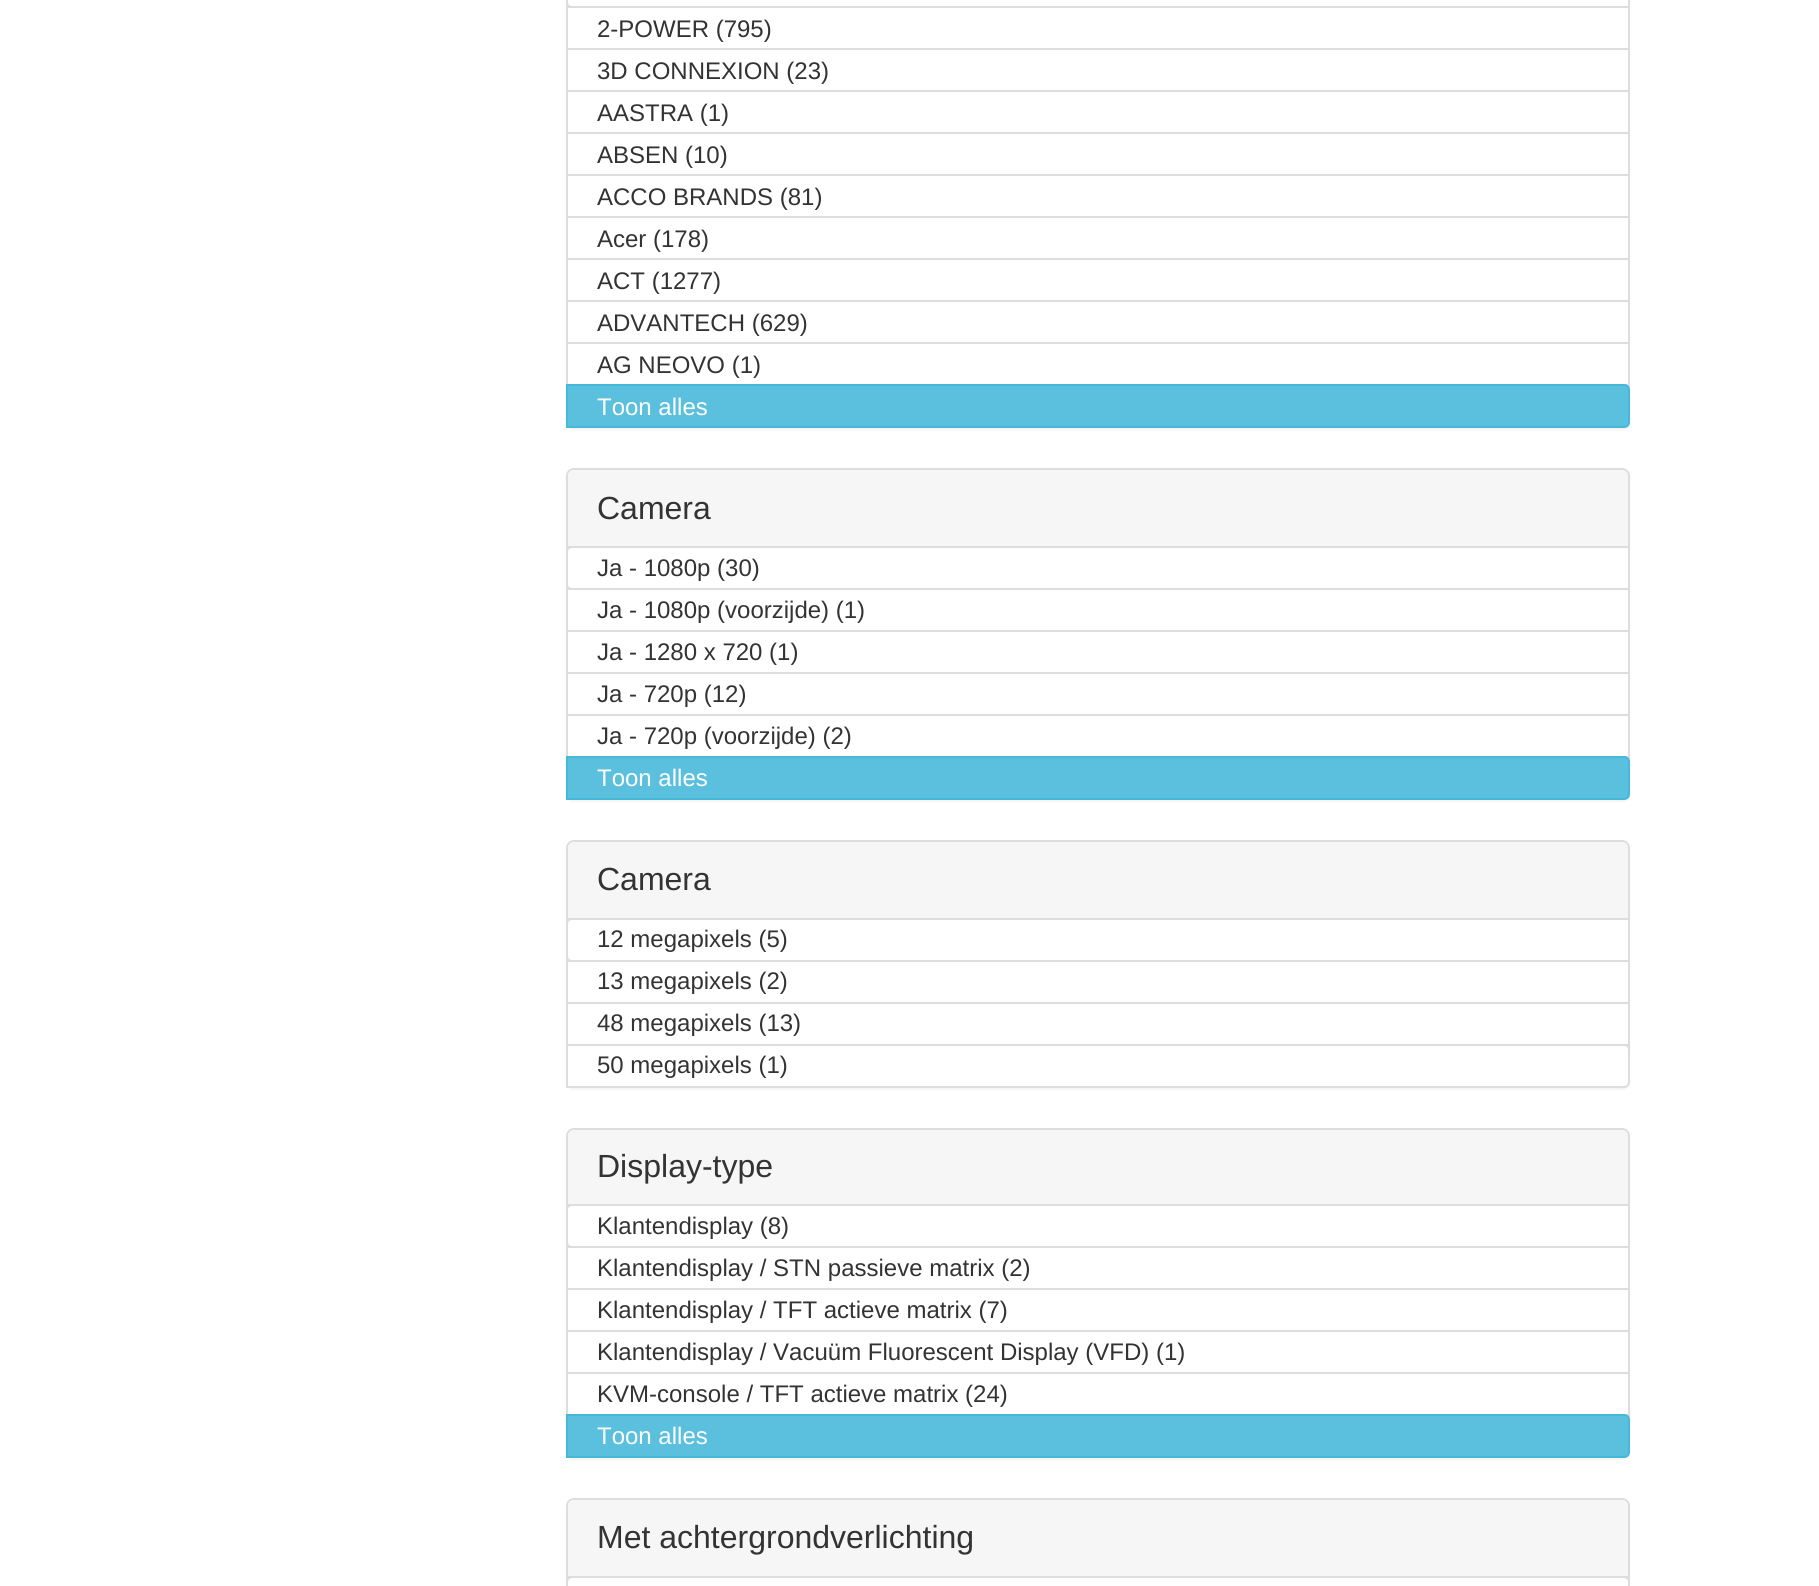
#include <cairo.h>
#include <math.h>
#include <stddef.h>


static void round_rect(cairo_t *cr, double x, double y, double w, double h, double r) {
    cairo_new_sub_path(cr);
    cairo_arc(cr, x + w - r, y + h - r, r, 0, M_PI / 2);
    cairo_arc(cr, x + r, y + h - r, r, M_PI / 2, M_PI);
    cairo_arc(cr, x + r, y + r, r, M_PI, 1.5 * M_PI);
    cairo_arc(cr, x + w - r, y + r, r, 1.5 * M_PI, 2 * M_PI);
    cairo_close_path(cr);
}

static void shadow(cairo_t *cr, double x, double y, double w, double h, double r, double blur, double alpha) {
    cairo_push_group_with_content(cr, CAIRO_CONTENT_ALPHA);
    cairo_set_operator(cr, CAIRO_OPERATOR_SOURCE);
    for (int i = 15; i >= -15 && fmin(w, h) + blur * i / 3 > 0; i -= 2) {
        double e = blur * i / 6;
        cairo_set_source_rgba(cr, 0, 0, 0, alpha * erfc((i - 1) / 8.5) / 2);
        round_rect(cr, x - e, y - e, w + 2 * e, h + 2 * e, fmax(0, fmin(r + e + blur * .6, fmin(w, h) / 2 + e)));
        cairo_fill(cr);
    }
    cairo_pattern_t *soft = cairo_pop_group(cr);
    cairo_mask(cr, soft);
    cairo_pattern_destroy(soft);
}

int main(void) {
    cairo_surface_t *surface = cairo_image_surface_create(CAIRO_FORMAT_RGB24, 1819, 1586);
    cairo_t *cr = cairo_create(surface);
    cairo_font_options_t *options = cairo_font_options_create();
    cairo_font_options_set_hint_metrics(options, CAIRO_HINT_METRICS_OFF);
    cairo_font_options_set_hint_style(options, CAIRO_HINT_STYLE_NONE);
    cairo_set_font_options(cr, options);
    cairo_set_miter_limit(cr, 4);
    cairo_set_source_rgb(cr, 1, 1, 1);
    cairo_paint(cr);
    cairo_set_source_rgb(cr, 0, 0, 0);
    shadow(cr, 566, -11, 1064, 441, 8, 1, 0.05);
    round_rect(cr, 567, -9, 1062, 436, 7);
    cairo_set_source_rgb(cr, 0.867, 0.867, 0.867);
    cairo_stroke(cr);
    cairo_set_source_rgb(cr, 1, 1, 1);
    cairo_new_path(cr);
    cairo_move_to(cr, 572, -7);
    cairo_line_to(cr, 1629, -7);
    cairo_line_to(cr, 1629, 7);
    cairo_line_to(cr, 572, 7);
    cairo_curve_to(cr, 569, 7, 567, 5, 567, 2);
    cairo_line_to(cr, 567, -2);
    cairo_curve_to(cr, 567, -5, 569, -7, 572, -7);
    cairo_close_path(cr);
    cairo_fill_preserve(cr);
    cairo_set_source_rgb(cr, 0.867, 0.867, 0.867);
    cairo_stroke(cr);
    cairo_set_source_rgb(cr, 1, 1, 1);
    cairo_rectangle(cr, 567, 7, 1062, 42);
    cairo_fill_preserve(cr);
    cairo_set_source_rgb(cr, 0.867, 0.867, 0.867);
    cairo_stroke(cr);
    cairo_select_font_face(cr, "Liberation Sans", CAIRO_FONT_SLANT_NORMAL, CAIRO_FONT_WEIGHT_NORMAL);
    cairo_set_font_size(cr, 24);
    cairo_set_source_rgb(cr, 0.2, 0.2, 0.2);
    cairo_move_to(cr, 597, 37);
    cairo_show_text(cr, "2-POWER (795)");
    cairo_set_source_rgb(cr, 1, 1, 1);
    cairo_rectangle(cr, 567, 49, 1062, 42);
    cairo_fill_preserve(cr);
    cairo_set_source_rgb(cr, 0.867, 0.867, 0.867);
    cairo_stroke(cr);
    cairo_set_source_rgb(cr, 0.2, 0.2, 0.2);
    cairo_move_to(cr, 597, 79);
    cairo_show_text(cr, "3D CONNEXION (23)");
    cairo_set_source_rgb(cr, 1, 1, 1);
    cairo_rectangle(cr, 567, 91, 1062, 42);
    cairo_fill_preserve(cr);
    cairo_set_source_rgb(cr, 0.867, 0.867, 0.867);
    cairo_stroke(cr);
    cairo_set_source_rgb(cr, 0.2, 0.2, 0.2);
    cairo_move_to(cr, 597, 121);
    cairo_show_text(cr, "AASTRA (1)");
    cairo_set_source_rgb(cr, 1, 1, 1);
    cairo_rectangle(cr, 567, 133, 1062, 42);
    cairo_fill_preserve(cr);
    cairo_set_source_rgb(cr, 0.867, 0.867, 0.867);
    cairo_stroke(cr);
    cairo_set_source_rgb(cr, 0.2, 0.2, 0.2);
    cairo_move_to(cr, 597, 163);
    cairo_show_text(cr, "ABSEN (10)");
    cairo_set_source_rgb(cr, 1, 1, 1);
    cairo_rectangle(cr, 567, 175, 1062, 42);
    cairo_fill_preserve(cr);
    cairo_set_source_rgb(cr, 0.867, 0.867, 0.867);
    cairo_stroke(cr);
    cairo_set_source_rgb(cr, 0.2, 0.2, 0.2);
    cairo_move_to(cr, 597, 205);
    cairo_show_text(cr, "ACCO BRANDS (81)");
    cairo_set_source_rgb(cr, 1, 1, 1);
    cairo_rectangle(cr, 567, 217, 1062, 42);
    cairo_fill_preserve(cr);
    cairo_set_source_rgb(cr, 0.867, 0.867, 0.867);
    cairo_stroke(cr);
    cairo_set_source_rgb(cr, 0.2, 0.2, 0.2);
    cairo_move_to(cr, 597, 247);
    cairo_show_text(cr, "Acer (178)");
    cairo_set_source_rgb(cr, 1, 1, 1);
    cairo_rectangle(cr, 567, 259, 1062, 42);
    cairo_fill_preserve(cr);
    cairo_set_source_rgb(cr, 0.867, 0.867, 0.867);
    cairo_stroke(cr);
    cairo_set_source_rgb(cr, 0.2, 0.2, 0.2);
    cairo_move_to(cr, 597, 289);
    cairo_show_text(cr, "ACT (1277)");
    cairo_set_source_rgb(cr, 1, 1, 1);
    cairo_rectangle(cr, 567, 301, 1062, 42);
    cairo_fill_preserve(cr);
    cairo_set_source_rgb(cr, 0.867, 0.867, 0.867);
    cairo_stroke(cr);
    cairo_set_source_rgb(cr, 0.2, 0.2, 0.2);
    cairo_move_to(cr, 597, 331);
    cairo_show_text(cr, "ADVANTECH (629)");
    cairo_set_source_rgb(cr, 1, 1, 1);
    cairo_rectangle(cr, 567, 343, 1062, 42);
    cairo_fill_preserve(cr);
    cairo_set_source_rgb(cr, 0.867, 0.867, 0.867);
    cairo_stroke(cr);
    cairo_set_source_rgb(cr, 0.2, 0.2, 0.2);
    cairo_move_to(cr, 597, 373);
    cairo_show_text(cr, "AG NEOVO (1)");
    cairo_set_source_rgb(cr, 0.357, 0.753, 0.871);
    cairo_new_path(cr);
    cairo_move_to(cr, 567, 385);
    cairo_line_to(cr, 1624, 385);
    cairo_curve_to(cr, 1627, 385, 1629, 387, 1629, 390);
    cairo_line_to(cr, 1629, 422);
    cairo_curve_to(cr, 1629, 425, 1627, 427, 1624, 427);
    cairo_line_to(cr, 567, 427);
    cairo_close_path(cr);
    cairo_fill_preserve(cr);
    cairo_set_source_rgb(cr, 0.275, 0.722, 0.855);
    cairo_stroke(cr);
    cairo_set_source_rgb(cr, 1, 1, 1);
    cairo_move_to(cr, 597, 415);
    cairo_show_text(cr, "Toon alles");
    cairo_set_source_rgb(cr, 0, 0, 0);
    shadow(cr, 566, 470, 1064, 332, 8, 1, 0.05);
    round_rect(cr, 567, 469, 1062, 330, 7);
    cairo_set_source_rgb(cr, 0.867, 0.867, 0.867);
    cairo_stroke(cr);
    cairo_set_source_rgb(cr, 0.961, 0.961, 0.961);
    cairo_new_path(cr);
    cairo_move_to(cr, 574, 470);
    cairo_line_to(cr, 1622, 470);
    cairo_curve_to(cr, 1625.5, 470, 1628, 472.5, 1628, 476);
    cairo_line_to(cr, 1628, 548);
    cairo_line_to(cr, 568, 548);
    cairo_line_to(cr, 568, 476);
    cairo_curve_to(cr, 568, 472.5, 570.5, 470, 574, 470);
    cairo_close_path(cr);
    cairo_fill(cr);
    cairo_set_source_rgb(cr, 0.867, 0.867, 0.867);
    cairo_rectangle(cr, 568, 546, 4, 2);
    cairo_fill(cr);
    cairo_set_font_size(cr, 32);
    cairo_set_source_rgb(cr, 0.2, 0.2, 0.2);
    cairo_move_to(cr, 597, 519);
    cairo_show_text(cr, "Camera");
    cairo_set_source_rgb(cr, 1, 1, 1);
    cairo_new_path(cr);
    cairo_move_to(cr, 572, 547);
    cairo_line_to(cr, 1629, 547);
    cairo_line_to(cr, 1629, 589);
    cairo_line_to(cr, 572, 589);
    cairo_curve_to(cr, 569, 589, 567, 587, 567, 584);
    cairo_line_to(cr, 567, 552);
    cairo_curve_to(cr, 567, 549, 569, 547, 572, 547);
    cairo_close_path(cr);
    cairo_fill_preserve(cr);
    cairo_set_source_rgb(cr, 0.867, 0.867, 0.867);
    cairo_stroke(cr);
    cairo_set_font_size(cr, 24);
    cairo_set_source_rgb(cr, 0.2, 0.2, 0.2);
    cairo_move_to(cr, 597, 576);
    cairo_show_text(cr, "Ja - 1080p (30)");
    cairo_set_source_rgb(cr, 1, 1, 1);
    cairo_rectangle(cr, 567, 589, 1062, 42);
    cairo_fill_preserve(cr);
    cairo_set_source_rgb(cr, 0.867, 0.867, 0.867);
    cairo_stroke(cr);
    cairo_set_source_rgb(cr, 0.2, 0.2, 0.2);
    cairo_move_to(cr, 597, 618);
    cairo_show_text(cr, "Ja - 1080p (voorzijde) (1)");
    cairo_set_source_rgb(cr, 1, 1, 1);
    cairo_rectangle(cr, 567, 631, 1062, 42);
    cairo_fill_preserve(cr);
    cairo_set_source_rgb(cr, 0.867, 0.867, 0.867);
    cairo_stroke(cr);
    cairo_set_source_rgb(cr, 0.2, 0.2, 0.2);
    cairo_move_to(cr, 597, 660);
    cairo_show_text(cr, "Ja - 1280 x 720 (1)");
    cairo_set_source_rgb(cr, 1, 1, 1);
    cairo_rectangle(cr, 567, 673, 1062, 42);
    cairo_fill_preserve(cr);
    cairo_set_source_rgb(cr, 0.867, 0.867, 0.867);
    cairo_stroke(cr);
    cairo_set_source_rgb(cr, 0.2, 0.2, 0.2);
    cairo_move_to(cr, 597, 702);
    cairo_show_text(cr, "Ja - 720p (12)");
    cairo_set_source_rgb(cr, 1, 1, 1);
    cairo_rectangle(cr, 567, 715, 1062, 42);
    cairo_fill_preserve(cr);
    cairo_set_source_rgb(cr, 0.867, 0.867, 0.867);
    cairo_stroke(cr);
    cairo_set_source_rgb(cr, 0.2, 0.2, 0.2);
    cairo_move_to(cr, 597, 744);
    cairo_show_text(cr, "Ja - 720p (voorzijde) (2)");
    cairo_set_source_rgb(cr, 0.357, 0.753, 0.871);
    cairo_new_path(cr);
    cairo_move_to(cr, 567, 757);
    cairo_line_to(cr, 1624, 757);
    cairo_curve_to(cr, 1627, 757, 1629, 759, 1629, 762);
    cairo_line_to(cr, 1629, 794);
    cairo_curve_to(cr, 1629, 797, 1627, 799, 1624, 799);
    cairo_line_to(cr, 567, 799);
    cairo_close_path(cr);
    cairo_fill_preserve(cr);
    cairo_set_source_rgb(cr, 0.275, 0.722, 0.855);
    cairo_stroke(cr);
    cairo_set_source_rgb(cr, 1, 1, 1);
    cairo_move_to(cr, 597, 786);
    cairo_show_text(cr, "Toon alles");
    cairo_set_source_rgb(cr, 0, 0, 0);
    shadow(cr, 566, 842, 1064, 248, 8, 1, 0.05);
    round_rect(cr, 567, 841, 1062, 246, 7);
    cairo_set_source_rgb(cr, 0.867, 0.867, 0.867);
    cairo_stroke(cr);
    cairo_set_source_rgb(cr, 0.961, 0.961, 0.961);
    cairo_new_path(cr);
    cairo_move_to(cr, 574, 842);
    cairo_line_to(cr, 1622, 842);
    cairo_curve_to(cr, 1625.5, 842, 1628, 844.5, 1628, 848);
    cairo_line_to(cr, 1628, 920);
    cairo_line_to(cr, 568, 920);
    cairo_line_to(cr, 568, 848);
    cairo_curve_to(cr, 568, 844.5, 570.5, 842, 574, 842);
    cairo_close_path(cr);
    cairo_fill(cr);
    cairo_set_source_rgb(cr, 0.867, 0.867, 0.867);
    cairo_rectangle(cr, 568, 918, 4, 2);
    cairo_fill(cr);
    cairo_set_font_size(cr, 32);
    cairo_set_source_rgb(cr, 0.2, 0.2, 0.2);
    cairo_move_to(cr, 597, 890);
    cairo_show_text(cr, "Camera");
    cairo_set_source_rgb(cr, 1, 1, 1);
    cairo_new_path(cr);
    cairo_move_to(cr, 572, 919);
    cairo_line_to(cr, 1629, 919);
    cairo_line_to(cr, 1629, 961);
    cairo_line_to(cr, 572, 961);
    cairo_curve_to(cr, 569, 961, 567, 959, 567, 956);
    cairo_line_to(cr, 567, 924);
    cairo_curve_to(cr, 567, 921, 569, 919, 572, 919);
    cairo_close_path(cr);
    cairo_fill_preserve(cr);
    cairo_set_source_rgb(cr, 0.867, 0.867, 0.867);
    cairo_stroke(cr);
    cairo_set_font_size(cr, 24);
    cairo_set_source_rgb(cr, 0.2, 0.2, 0.2);
    cairo_move_to(cr, 597, 947);
    cairo_show_text(cr, "12 megapixels (5)");
    cairo_set_source_rgb(cr, 1, 1, 1);
    cairo_rectangle(cr, 567, 961, 1062, 42);
    cairo_fill_preserve(cr);
    cairo_set_source_rgb(cr, 0.867, 0.867, 0.867);
    cairo_stroke(cr);
    cairo_set_source_rgb(cr, 0.2, 0.2, 0.2);
    cairo_move_to(cr, 597, 989);
    cairo_show_text(cr, "13 megapixels (2)");
    cairo_set_source_rgb(cr, 1, 1, 1);
    cairo_rectangle(cr, 567, 1003, 1062, 42);
    cairo_fill_preserve(cr);
    cairo_set_source_rgb(cr, 0.867, 0.867, 0.867);
    cairo_stroke(cr);
    cairo_set_source_rgb(cr, 0.2, 0.2, 0.2);
    cairo_move_to(cr, 597, 1031);
    cairo_show_text(cr, "48 megapixels (13)");
    cairo_set_source_rgb(cr, 1, 1, 1);
    cairo_new_path(cr);
    cairo_move_to(cr, 567, 1045);
    cairo_line_to(cr, 1624, 1045);
    cairo_curve_to(cr, 1627, 1045, 1629, 1047, 1629, 1050);
    cairo_line_to(cr, 1629, 1082);
    cairo_curve_to(cr, 1629, 1085, 1627, 1087, 1624, 1087);
    cairo_line_to(cr, 567, 1087);
    cairo_close_path(cr);
    cairo_fill_preserve(cr);
    cairo_set_source_rgb(cr, 0.867, 0.867, 0.867);
    cairo_stroke(cr);
    cairo_set_source_rgb(cr, 0.2, 0.2, 0.2);
    cairo_move_to(cr, 597, 1073);
    cairo_show_text(cr, "50 megapixels (1)");
    cairo_set_source_rgb(cr, 0, 0, 0);
    shadow(cr, 566, 1130, 1064, 330, 8, 1, 0.05);
    round_rect(cr, 567, 1129, 1062, 328, 7);
    cairo_set_source_rgb(cr, 0.867, 0.867, 0.867);
    cairo_stroke(cr);
    cairo_set_source_rgb(cr, 0.961, 0.961, 0.961);
    cairo_new_path(cr);
    cairo_move_to(cr, 574, 1130);
    cairo_line_to(cr, 1622, 1130);
    cairo_curve_to(cr, 1625.5, 1130, 1628, 1132.5, 1628, 1136);
    cairo_line_to(cr, 1628, 1206);
    cairo_line_to(cr, 568, 1206);
    cairo_line_to(cr, 568, 1136);
    cairo_curve_to(cr, 568, 1132.5, 570.5, 1130, 574, 1130);
    cairo_close_path(cr);
    cairo_fill(cr);
    cairo_set_source_rgb(cr, 0.867, 0.867, 0.867);
    cairo_rectangle(cr, 568, 1204, 4, 2);
    cairo_fill(cr);
    cairo_set_font_size(cr, 32);
    cairo_set_source_rgb(cr, 0.2, 0.2, 0.2);
    cairo_move_to(cr, 597, 1177);
    cairo_show_text(cr, "Display-type");
    cairo_set_source_rgb(cr, 1, 1, 1);
    cairo_new_path(cr);
    cairo_move_to(cr, 572, 1205);
    cairo_line_to(cr, 1629, 1205);
    cairo_line_to(cr, 1629, 1247);
    cairo_line_to(cr, 572, 1247);
    cairo_curve_to(cr, 569, 1247, 567, 1245, 567, 1242);
    cairo_line_to(cr, 567, 1210);
    cairo_curve_to(cr, 567, 1207, 569, 1205, 572, 1205);
    cairo_close_path(cr);
    cairo_fill_preserve(cr);
    cairo_set_source_rgb(cr, 0.867, 0.867, 0.867);
    cairo_stroke(cr);
    cairo_set_font_size(cr, 24);
    cairo_set_source_rgb(cr, 0.2, 0.2, 0.2);
    cairo_move_to(cr, 597, 1234);
    cairo_show_text(cr, "Klantendisplay (8)");
    cairo_set_source_rgb(cr, 1, 1, 1);
    cairo_rectangle(cr, 567, 1247, 1062, 42);
    cairo_fill_preserve(cr);
    cairo_set_source_rgb(cr, 0.867, 0.867, 0.867);
    cairo_stroke(cr);
    cairo_set_source_rgb(cr, 0.2, 0.2, 0.2);
    cairo_move_to(cr, 597, 1276);
    cairo_show_text(cr, "Klantendisplay / STN passieve matrix (2)");
    cairo_set_source_rgb(cr, 1, 1, 1);
    cairo_rectangle(cr, 567, 1289, 1062, 42);
    cairo_fill_preserve(cr);
    cairo_set_source_rgb(cr, 0.867, 0.867, 0.867);
    cairo_stroke(cr);
    cairo_set_source_rgb(cr, 0.2, 0.2, 0.2);
    cairo_move_to(cr, 597, 1318);
    cairo_show_text(cr, "Klantendisplay / TFT actieve matrix (7)");
    cairo_set_source_rgb(cr, 1, 1, 1);
    cairo_rectangle(cr, 567, 1331, 1062, 42);
    cairo_fill_preserve(cr);
    cairo_set_source_rgb(cr, 0.867, 0.867, 0.867);
    cairo_stroke(cr);
    cairo_set_source_rgb(cr, 0.2, 0.2, 0.2);
    cairo_move_to(cr, 597, 1360);
    cairo_show_text(cr, "Klantendisplay / Vacuüm Fluorescent Display (VFD) (1)");
    cairo_set_source_rgb(cr, 1, 1, 1);
    cairo_rectangle(cr, 567, 1373, 1062, 42);
    cairo_fill_preserve(cr);
    cairo_set_source_rgb(cr, 0.867, 0.867, 0.867);
    cairo_stroke(cr);
    cairo_set_source_rgb(cr, 0.2, 0.2, 0.2);
    cairo_move_to(cr, 597, 1402);
    cairo_show_text(cr, "KVM-console / TFT actieve matrix (24)");
    cairo_set_source_rgb(cr, 0.357, 0.753, 0.871);
    cairo_new_path(cr);
    cairo_move_to(cr, 567, 1415);
    cairo_line_to(cr, 1624, 1415);
    cairo_curve_to(cr, 1627, 1415, 1629, 1417, 1629, 1420);
    cairo_line_to(cr, 1629, 1452);
    cairo_curve_to(cr, 1629, 1455, 1627, 1457, 1624, 1457);
    cairo_line_to(cr, 567, 1457);
    cairo_close_path(cr);
    cairo_fill_preserve(cr);
    cairo_set_source_rgb(cr, 0.275, 0.722, 0.855);
    cairo_stroke(cr);
    cairo_set_source_rgb(cr, 1, 1, 1);
    cairo_move_to(cr, 597, 1444);
    cairo_show_text(cr, "Toon alles");
    round_rect(cr, 567, 1499, 1062, 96, 7);
    cairo_set_source_rgb(cr, 0.867, 0.867, 0.867);
    cairo_stroke(cr);
    cairo_set_source_rgb(cr, 0.961, 0.961, 0.961);
    cairo_new_path(cr);
    cairo_move_to(cr, 574, 1500);
    cairo_line_to(cr, 1622, 1500);
    cairo_curve_to(cr, 1625.5, 1500, 1628, 1502.5, 1628, 1506);
    cairo_line_to(cr, 1628, 1578);
    cairo_line_to(cr, 568, 1578);
    cairo_line_to(cr, 568, 1506);
    cairo_curve_to(cr, 568, 1502.5, 570.5, 1500, 574, 1500);
    cairo_close_path(cr);
    cairo_fill(cr);
    cairo_set_source_rgb(cr, 0.867, 0.867, 0.867);
    cairo_rectangle(cr, 568, 1576, 1060, 2);
    cairo_fill(cr);
    cairo_set_font_size(cr, 32);
    cairo_set_source_rgb(cr, 0.2, 0.2, 0.2);
    cairo_move_to(cr, 597, 1548);
    cairo_show_text(cr, "Met achtergrondverlichting");
    cairo_set_source_rgb(cr, 1, 1, 1);
    round_rect(cr, 567, 1577, 1062, 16, 5);
    cairo_fill_preserve(cr);
    cairo_set_source_rgb(cr, 0.867, 0.867, 0.867);
    cairo_stroke(cr);
    cairo_surface_write_to_png(surface, "page.png");
    cairo_font_options_destroy(options);
    cairo_destroy(cr);
    cairo_surface_destroy(surface);
    return 0;
}
